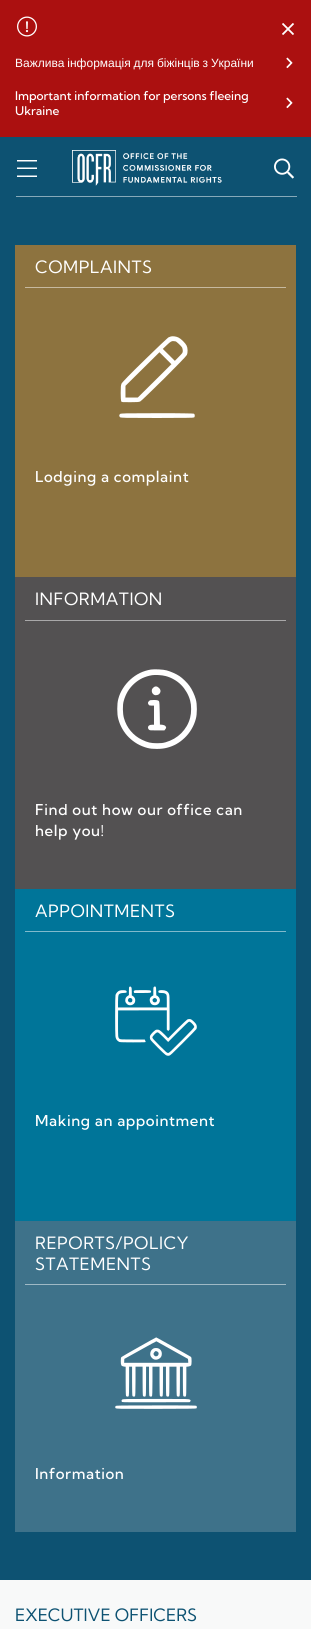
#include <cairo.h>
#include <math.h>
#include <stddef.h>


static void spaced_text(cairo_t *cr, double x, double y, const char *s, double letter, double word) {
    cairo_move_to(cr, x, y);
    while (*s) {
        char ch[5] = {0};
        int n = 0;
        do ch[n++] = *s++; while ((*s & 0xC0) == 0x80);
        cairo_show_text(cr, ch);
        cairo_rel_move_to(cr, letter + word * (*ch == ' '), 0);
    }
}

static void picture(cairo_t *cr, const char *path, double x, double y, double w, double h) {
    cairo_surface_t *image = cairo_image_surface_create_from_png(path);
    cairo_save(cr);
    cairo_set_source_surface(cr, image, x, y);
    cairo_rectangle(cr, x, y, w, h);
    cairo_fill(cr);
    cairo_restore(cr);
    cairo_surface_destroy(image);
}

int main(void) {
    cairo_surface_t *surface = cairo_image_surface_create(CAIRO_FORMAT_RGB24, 311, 1629);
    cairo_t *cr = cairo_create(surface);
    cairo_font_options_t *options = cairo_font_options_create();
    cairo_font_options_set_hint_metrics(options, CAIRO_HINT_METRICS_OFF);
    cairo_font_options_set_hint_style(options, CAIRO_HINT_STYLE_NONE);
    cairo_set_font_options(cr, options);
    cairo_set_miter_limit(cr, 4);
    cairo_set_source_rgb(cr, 0.969, 0.973, 0.976);
    cairo_paint(cr);
    cairo_set_source_rgb(cr, 0.671, 0.063, 0.063);
    cairo_rectangle(cr, 0, 0, 311, 137);
    cairo_fill(cr);
    picture(cr, "img1.png", 282, 23, 12, 12);
    picture(cr, "img2.png", 17, 16, 20, 21);
    cairo_select_font_face(cr, "Liberation Sans", CAIRO_FONT_SLANT_NORMAL, CAIRO_FONT_WEIGHT_NORMAL);
    cairo_set_font_size(cr, 12);
    cairo_set_source_rgb(cr, 1, 1, 1);
    spaced_text(cr, 15, 67, "Важлива інформація для біжінців з України", 0, -0.5);
    picture(cr, "img3.png", 286, 57, 7, 12);
    cairo_select_font_face(cr, "Kumbh Sans Medium", CAIRO_FONT_SLANT_NORMAL, CAIRO_FONT_WEIGHT_NORMAL);
    cairo_move_to(cr, 15, 100);
    cairo_show_text(cr, "Important information for persons fleeing");
    picture(cr, "img3.png", 286, 97, 7, 12);
    cairo_move_to(cr, 15, 115);
    cairo_show_text(cr, "Ukraine");
    cairo_set_source_rgb(cr, 0.051, 0.322, 0.447);
    cairo_rectangle(cr, 0, 137, 311, 1443);
    cairo_fill(cr);
    picture(cr, "img4.png", 17, 160, 20, 17);
    picture(cr, "img5.png", 72, 150, 150, 36);
    picture(cr, "img6.png", 274, 158, 20, 21);
    cairo_set_source_rgb(cr, 0.525, 0.663, 0.725);
    cairo_rectangle(cr, 16, 196, 281, 1);
    cairo_fill(cr);
    cairo_set_source_rgb(cr, 0.553, 0.451, 0.247);
    cairo_rectangle(cr, 15, 245, 281, 332);
    cairo_fill(cr);
    cairo_select_font_face(cr, "Kumbh Sans", CAIRO_FONT_SLANT_NORMAL, CAIRO_FONT_WEIGHT_NORMAL);
    cairo_set_font_size(cr, 17);
    cairo_set_source_rgb(cr, 1, 1, 1);
    spaced_text(cr, 35, 273, "COMPLAINTS", 0.5, 0);
    cairo_set_source_rgb(cr, 0.776, 0.725, 0.624);
    cairo_rectangle(cr, 25, 287, 261, 1);
    cairo_fill(cr);
    picture(cr, "img7.png", 119, 336, 76, 82);
    cairo_select_font_face(cr, "Kumbh Sans Medium", CAIRO_FONT_SLANT_NORMAL, CAIRO_FONT_WEIGHT_NORMAL);
    cairo_set_font_size(cr, 15);
    cairo_set_source_rgb(cr, 1, 1, 1);
    spaced_text(cr, 35, 482, "Lodging a complaint", 0.6, 0);
    cairo_set_source_rgb(cr, 0.325, 0.318, 0.322);
    cairo_rectangle(cr, 15, 577, 281, 312);
    cairo_fill(cr);
    cairo_select_font_face(cr, "Kumbh Sans", CAIRO_FONT_SLANT_NORMAL, CAIRO_FONT_WEIGHT_NORMAL);
    cairo_set_font_size(cr, 17);
    cairo_set_source_rgb(cr, 1, 1, 1);
    spaced_text(cr, 35, 605, "INFORMATION", 0.5, 0);
    cairo_set_source_rgb(cr, 0.663, 0.659, 0.663);
    cairo_rectangle(cr, 25, 620, 261, 1);
    cairo_fill(cr);
    picture(cr, "img8.png", 117, 669, 80, 80);
    cairo_select_font_face(cr, "Kumbh Sans Medium", CAIRO_FONT_SLANT_NORMAL, CAIRO_FONT_WEIGHT_NORMAL);
    cairo_set_font_size(cr, 15);
    cairo_set_source_rgb(cr, 1, 1, 1);
    spaced_text(cr, 35, 815, "Find out how our office can", 0.6, 0);
    spaced_text(cr, 35, 836, "help you!", 0.6, 0);
    cairo_set_source_rgb(cr, 0, 0.459, 0.6);
    cairo_rectangle(cr, 15, 889, 281, 332);
    cairo_fill(cr);
    cairo_select_font_face(cr, "Kumbh Sans", CAIRO_FONT_SLANT_NORMAL, CAIRO_FONT_WEIGHT_NORMAL);
    cairo_set_font_size(cr, 17);
    cairo_set_source_rgb(cr, 1, 1, 1);
    spaced_text(cr, 35, 917, "APPOINTMENTS", 0.5, 0);
    cairo_set_source_rgb(cr, 0.502, 0.729, 0.8);
    cairo_rectangle(cr, 25, 931, 261, 1);
    cairo_fill(cr);
    picture(cr, "img9.png", 115, 986, 82, 70);
    cairo_select_font_face(cr, "Kumbh Sans Medium", CAIRO_FONT_SLANT_NORMAL, CAIRO_FONT_WEIGHT_NORMAL);
    cairo_set_font_size(cr, 15);
    cairo_set_source_rgb(cr, 1, 1, 1);
    spaced_text(cr, 35, 1126, "Making an appointment", 0.6, 0);
    cairo_set_source_rgb(cr, 0.243, 0.447, 0.541);
    cairo_rectangle(cr, 15, 1221, 281, 311);
    cairo_fill(cr);
    cairo_select_font_face(cr, "Kumbh Sans", CAIRO_FONT_SLANT_NORMAL, CAIRO_FONT_WEIGHT_NORMAL);
    cairo_set_font_size(cr, 17);
    cairo_set_source_rgb(cr, 1, 1, 1);
    spaced_text(cr, 35, 1249, "REPORTS/POLICY", 0.5, 0);
    spaced_text(cr, 35, 1270, "STATEMENTS", 0.5, 0);
    cairo_set_source_rgb(cr, 0.624, 0.725, 0.773);
    cairo_rectangle(cr, 25, 1284, 261, 1);
    cairo_fill(cr);
    picture(cr, "img10.png", 115, 1337, 82, 72);
    cairo_select_font_face(cr, "Kumbh Sans Medium", CAIRO_FONT_SLANT_NORMAL, CAIRO_FONT_WEIGHT_NORMAL);
    cairo_set_font_size(cr, 15);
    cairo_set_source_rgb(cr, 1, 1, 1);
    spaced_text(cr, 35, 1479, "Information", 0.6, 0);
    cairo_select_font_face(cr, "Kumbh Sans", CAIRO_FONT_SLANT_NORMAL, CAIRO_FONT_WEIGHT_NORMAL);
    cairo_set_font_size(cr, 17);
    cairo_set_source_rgb(cr, 0.051, 0.322, 0.447);
    cairo_move_to(cr, 15, 1621);
    cairo_show_text(cr, "EXECUTIVE OFFICERS");
    cairo_surface_write_to_png(surface, "page.png");
    cairo_font_options_destroy(options);
    cairo_destroy(cr);
    cairo_surface_destroy(surface);
    return 0;
}
